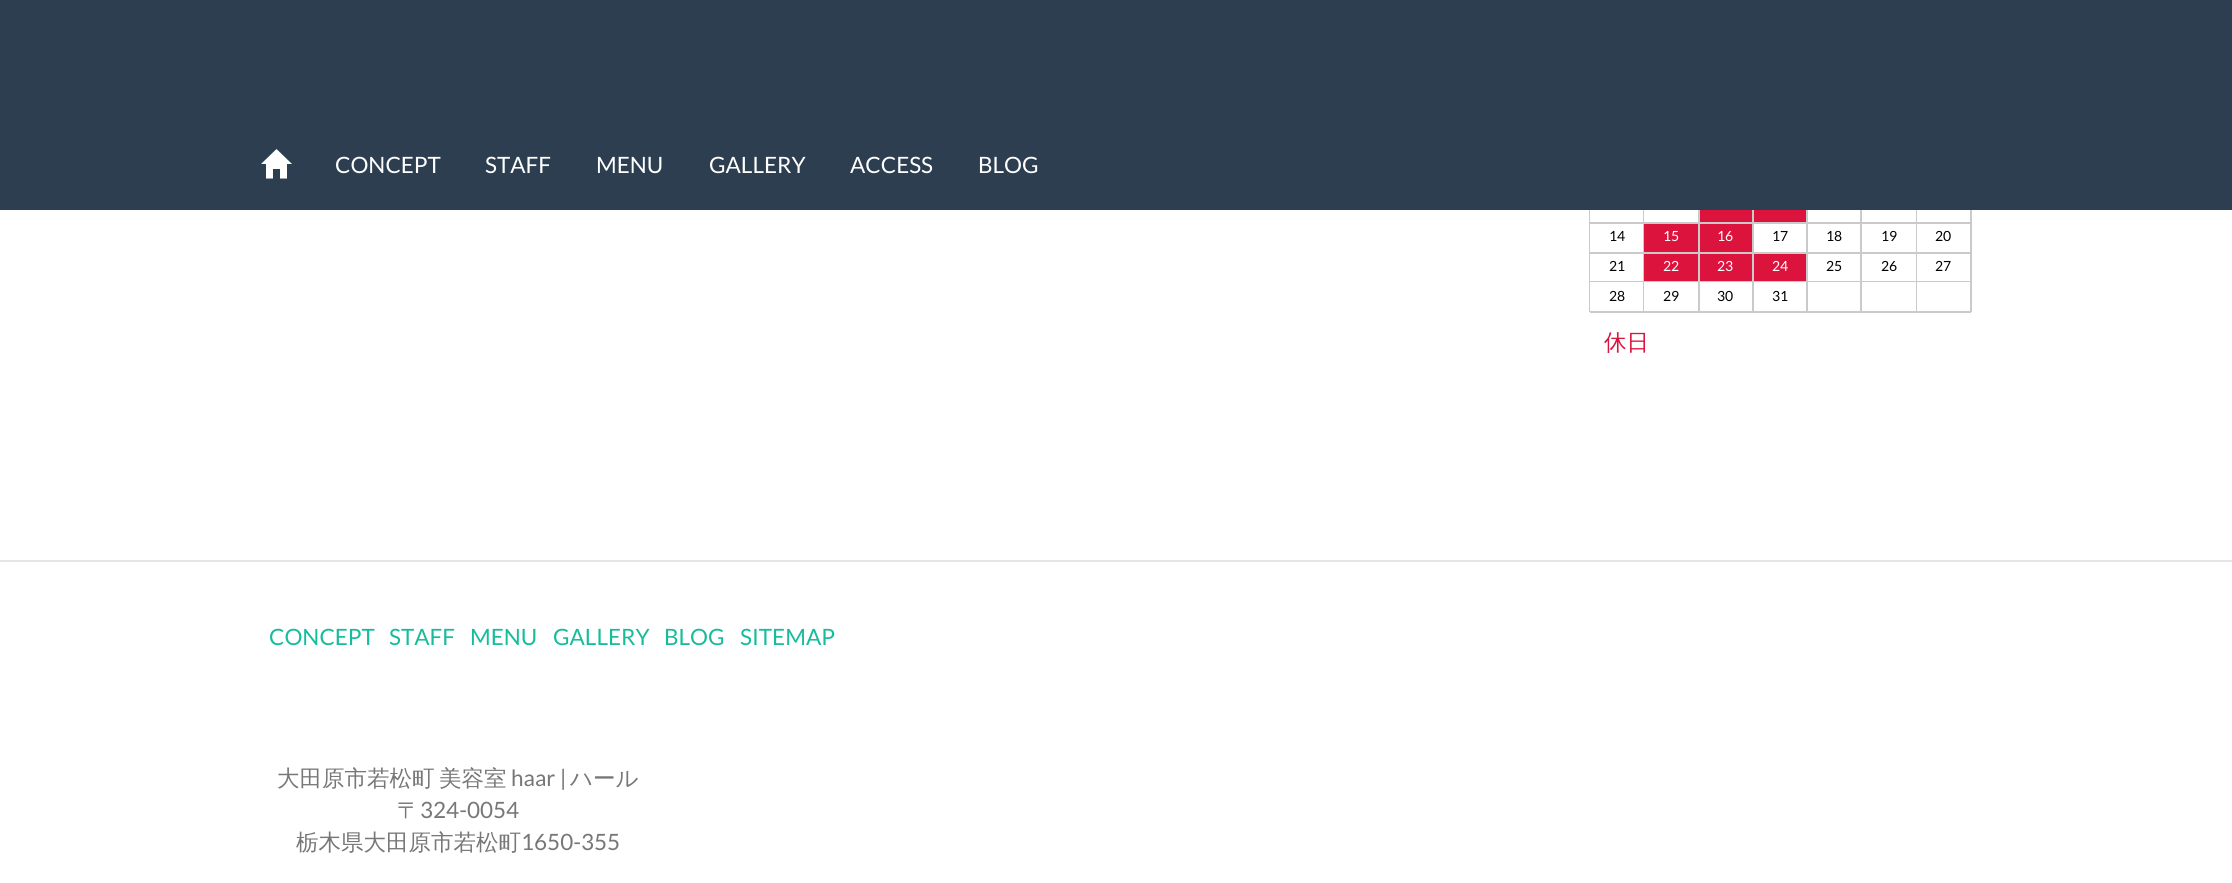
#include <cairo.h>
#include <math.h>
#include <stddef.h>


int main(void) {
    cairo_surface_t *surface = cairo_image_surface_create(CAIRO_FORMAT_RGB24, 2232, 883);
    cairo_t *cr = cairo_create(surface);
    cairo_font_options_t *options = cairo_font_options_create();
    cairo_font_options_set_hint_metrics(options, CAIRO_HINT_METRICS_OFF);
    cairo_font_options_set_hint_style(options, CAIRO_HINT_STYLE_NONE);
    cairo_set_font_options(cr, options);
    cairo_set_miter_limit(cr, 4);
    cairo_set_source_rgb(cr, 1, 1, 1);
    cairo_paint(cr);
    cairo_set_source_rgb(cr, 0.173, 0.243, 0.314);
    cairo_rectangle(cr, 0, 0, 2232, 210);
    cairo_fill(cr);
    cairo_set_source_rgb(cr, 1, 1, 1);
    cairo_new_path(cr);
    cairo_move_to(cr, 261, 164);
    cairo_line_to(cr, 276.5, 149);
    cairo_line_to(cr, 292, 164);
    cairo_line_to(cr, 287, 164);
    cairo_line_to(cr, 287, 178.5);
    cairo_line_to(cr, 280, 178.5);
    cairo_line_to(cr, 280, 169);
    cairo_line_to(cr, 273, 169);
    cairo_line_to(cr, 273, 178.5);
    cairo_line_to(cr, 266, 178.5);
    cairo_line_to(cr, 266, 164);
    cairo_close_path(cr);
    cairo_fill(cr);
    cairo_select_font_face(cr, "Lato", CAIRO_FONT_SLANT_NORMAL, CAIRO_FONT_WEIGHT_NORMAL);
    cairo_set_font_size(cr, 22.5);
    cairo_move_to(cr, 335, 173);
    cairo_show_text(cr, "CONCEPT");
    cairo_move_to(cr, 485, 173);
    cairo_show_text(cr, "STAFF");
    cairo_move_to(cr, 596, 173);
    cairo_show_text(cr, "MENU");
    cairo_move_to(cr, 709, 173);
    cairo_show_text(cr, "GALLERY");
    cairo_move_to(cr, 850, 173);
    cairo_show_text(cr, "ACCESS");
    cairo_move_to(cr, 978, 173);
    cairo_show_text(cr, "BLOG");
    cairo_set_source_rgb(cr, 0.792, 0.792, 0.792);
    cairo_rectangle(cr, 1589, 210, 1, 102);
    cairo_fill(cr);
    cairo_rectangle(cr, 1643, 210, 1, 102);
    cairo_fill(cr);
    cairo_rectangle(cr, 1590, 222, 54, 2);
    cairo_fill(cr);
    cairo_rectangle(cr, 1698, 210, 2, 102);
    cairo_fill(cr);
    cairo_rectangle(cr, 1644, 222, 56, 2);
    cairo_fill(cr);
    cairo_set_source_rgb(cr, 0.863, 0.078, 0.235);
    cairo_rectangle(cr, 1700, 210, 52, 12);
    cairo_fill(cr);
    cairo_set_source_rgb(cr, 0.792, 0.792, 0.792);
    cairo_rectangle(cr, 1752, 210, 2, 102);
    cairo_fill(cr);
    cairo_rectangle(cr, 1700, 222, 54, 2);
    cairo_fill(cr);
    cairo_set_source_rgb(cr, 0.863, 0.078, 0.235);
    cairo_rectangle(cr, 1754, 210, 52, 12);
    cairo_fill(cr);
    cairo_set_source_rgb(cr, 0.792, 0.792, 0.792);
    cairo_rectangle(cr, 1806, 210, 2, 102);
    cairo_fill(cr);
    cairo_rectangle(cr, 1754, 222, 54, 2);
    cairo_fill(cr);
    cairo_rectangle(cr, 1860, 210, 2, 102);
    cairo_fill(cr);
    cairo_rectangle(cr, 1808, 222, 54, 2);
    cairo_fill(cr);
    cairo_rectangle(cr, 1916, 210, 1, 102);
    cairo_fill(cr);
    cairo_rectangle(cr, 1862, 222, 55, 2);
    cairo_fill(cr);
    cairo_rectangle(cr, 1970, 210, 2, 102);
    cairo_fill(cr);
    cairo_rectangle(cr, 1917, 222, 54, 2);
    cairo_fill(cr);
    cairo_rectangle(cr, 1590, 252, 381, 2);
    cairo_fill(cr);
    cairo_set_font_size(cr, 14);
    cairo_set_source_rgb(cr, 0, 0, 0);
    cairo_move_to(cr, 1609, 241);
    cairo_show_text(cr, "14");
    cairo_set_source_rgb(cr, 0.863, 0.078, 0.235);
    cairo_rectangle(cr, 1644, 224, 54, 28);
    cairo_fill(cr);
    cairo_set_source_rgb(cr, 1, 1, 1);
    cairo_move_to(cr, 1663, 241);
    cairo_show_text(cr, "15");
    cairo_set_source_rgb(cr, 0.863, 0.078, 0.235);
    cairo_rectangle(cr, 1700, 224, 52, 28);
    cairo_fill(cr);
    cairo_set_source_rgb(cr, 1, 1, 1);
    cairo_move_to(cr, 1717, 241);
    cairo_show_text(cr, "16");
    cairo_set_source_rgb(cr, 0, 0, 0);
    cairo_move_to(cr, 1772, 241);
    cairo_show_text(cr, "17");
    cairo_move_to(cr, 1826, 241);
    cairo_show_text(cr, "18");
    cairo_move_to(cr, 1881, 241);
    cairo_show_text(cr, "19");
    cairo_move_to(cr, 1935, 241);
    cairo_show_text(cr, "20");
    cairo_set_source_rgb(cr, 0.792, 0.792, 0.792);
    cairo_rectangle(cr, 1590, 281, 381, 1);
    cairo_fill(cr);
    cairo_set_source_rgb(cr, 0, 0, 0);
    cairo_move_to(cr, 1609, 271);
    cairo_show_text(cr, "21");
    cairo_set_source_rgb(cr, 0.863, 0.078, 0.235);
    cairo_rectangle(cr, 1644, 254, 54, 27);
    cairo_fill(cr);
    cairo_set_source_rgb(cr, 1, 1, 1);
    cairo_move_to(cr, 1663, 271);
    cairo_show_text(cr, "22");
    cairo_set_source_rgb(cr, 0.863, 0.078, 0.235);
    cairo_rectangle(cr, 1700, 254, 52, 27);
    cairo_fill(cr);
    cairo_set_source_rgb(cr, 1, 1, 1);
    cairo_move_to(cr, 1717, 271);
    cairo_show_text(cr, "23");
    cairo_set_source_rgb(cr, 0.863, 0.078, 0.235);
    cairo_rectangle(cr, 1754, 254, 52, 27);
    cairo_fill(cr);
    cairo_set_source_rgb(cr, 1, 1, 1);
    cairo_move_to(cr, 1772, 271);
    cairo_show_text(cr, "24");
    cairo_set_source_rgb(cr, 0, 0, 0);
    cairo_move_to(cr, 1826, 271);
    cairo_show_text(cr, "25");
    cairo_move_to(cr, 1881, 271);
    cairo_show_text(cr, "26");
    cairo_move_to(cr, 1935, 271);
    cairo_show_text(cr, "27");
    cairo_set_source_rgb(cr, 0.792, 0.792, 0.792);
    cairo_rectangle(cr, 1590, 311, 381, 2);
    cairo_fill(cr);
    cairo_set_source_rgb(cr, 0, 0, 0);
    cairo_move_to(cr, 1609, 301);
    cairo_show_text(cr, "28");
    cairo_move_to(cr, 1663, 301);
    cairo_show_text(cr, "29");
    cairo_move_to(cr, 1717, 301);
    cairo_show_text(cr, "30");
    cairo_move_to(cr, 1772, 301);
    cairo_show_text(cr, "31");
    cairo_select_font_face(cr, "WenQuanYi Zen Hei Medium", CAIRO_FONT_SLANT_NORMAL, CAIRO_FONT_WEIGHT_NORMAL);
    cairo_set_font_size(cr, 22.5);
    cairo_set_source_rgb(cr, 0.863, 0.078, 0.235);
    cairo_move_to(cr, 1604, 350);
    cairo_show_text(cr, "休日");
    cairo_set_source_rgb(cr, 0.898, 0.898, 0.898);
    cairo_rectangle(cr, 0, 560, 2232, 2);
    cairo_fill(cr);
    cairo_select_font_face(cr, "Lato", CAIRO_FONT_SLANT_NORMAL, CAIRO_FONT_WEIGHT_NORMAL);
    cairo_set_source_rgb(cr, 0.094, 0.737, 0.612);
    cairo_move_to(cr, 269, 645);
    cairo_show_text(cr, "CONCEPT");
    cairo_move_to(cr, 389, 645);
    cairo_show_text(cr, "STAFF");
    cairo_move_to(cr, 470, 645);
    cairo_show_text(cr, "MENU");
    cairo_move_to(cr, 553, 645);
    cairo_show_text(cr, "GALLERY");
    cairo_move_to(cr, 664, 645);
    cairo_show_text(cr, "BLOG");
    cairo_move_to(cr, 740, 645);
    cairo_show_text(cr, "SITEMAP");
    cairo_select_font_face(cr, "WenQuanYi Zen Hei Medium", CAIRO_FONT_SLANT_NORMAL, CAIRO_FONT_WEIGHT_NORMAL);
    cairo_set_source_rgb(cr, 0.467, 0.467, 0.467);
    cairo_move_to(cr, 277, 786);
    cairo_show_text(cr, "大田原市若松町");
    cairo_move_to(cr, 439, 786);
    cairo_show_text(cr, "美容室");
    cairo_select_font_face(cr, "Lato", CAIRO_FONT_SLANT_NORMAL, CAIRO_FONT_WEIGHT_NORMAL);
    cairo_move_to(cr, 511, 786);
    cairo_show_text(cr, "haar |");
    cairo_select_font_face(cr, "WenQuanYi Zen Hei Medium", CAIRO_FONT_SLANT_NORMAL, CAIRO_FONT_WEIGHT_NORMAL);
    cairo_move_to(cr, 570, 786);
    cairo_show_text(cr, "ハール");
    cairo_move_to(cr, 397, 818);
    cairo_show_text(cr, "〒");
    cairo_select_font_face(cr, "Lato", CAIRO_FONT_SLANT_NORMAL, CAIRO_FONT_WEIGHT_NORMAL);
    cairo_move_to(cr, 420, 818);
    cairo_show_text(cr, "324-0054");
    cairo_select_font_face(cr, "WenQuanYi Zen Hei Medium", CAIRO_FONT_SLANT_NORMAL, CAIRO_FONT_WEIGHT_NORMAL);
    cairo_move_to(cr, 296, 850);
    cairo_show_text(cr, "栃木県大田原市若松町");
    cairo_select_font_face(cr, "Lato", CAIRO_FONT_SLANT_NORMAL, CAIRO_FONT_WEIGHT_NORMAL);
    cairo_move_to(cr, 521, 850);
    cairo_show_text(cr, "1650-355");
    cairo_surface_write_to_png(surface, "page.png");
    cairo_font_options_destroy(options);
    cairo_destroy(cr);
    cairo_surface_destroy(surface);
    return 0;
}
